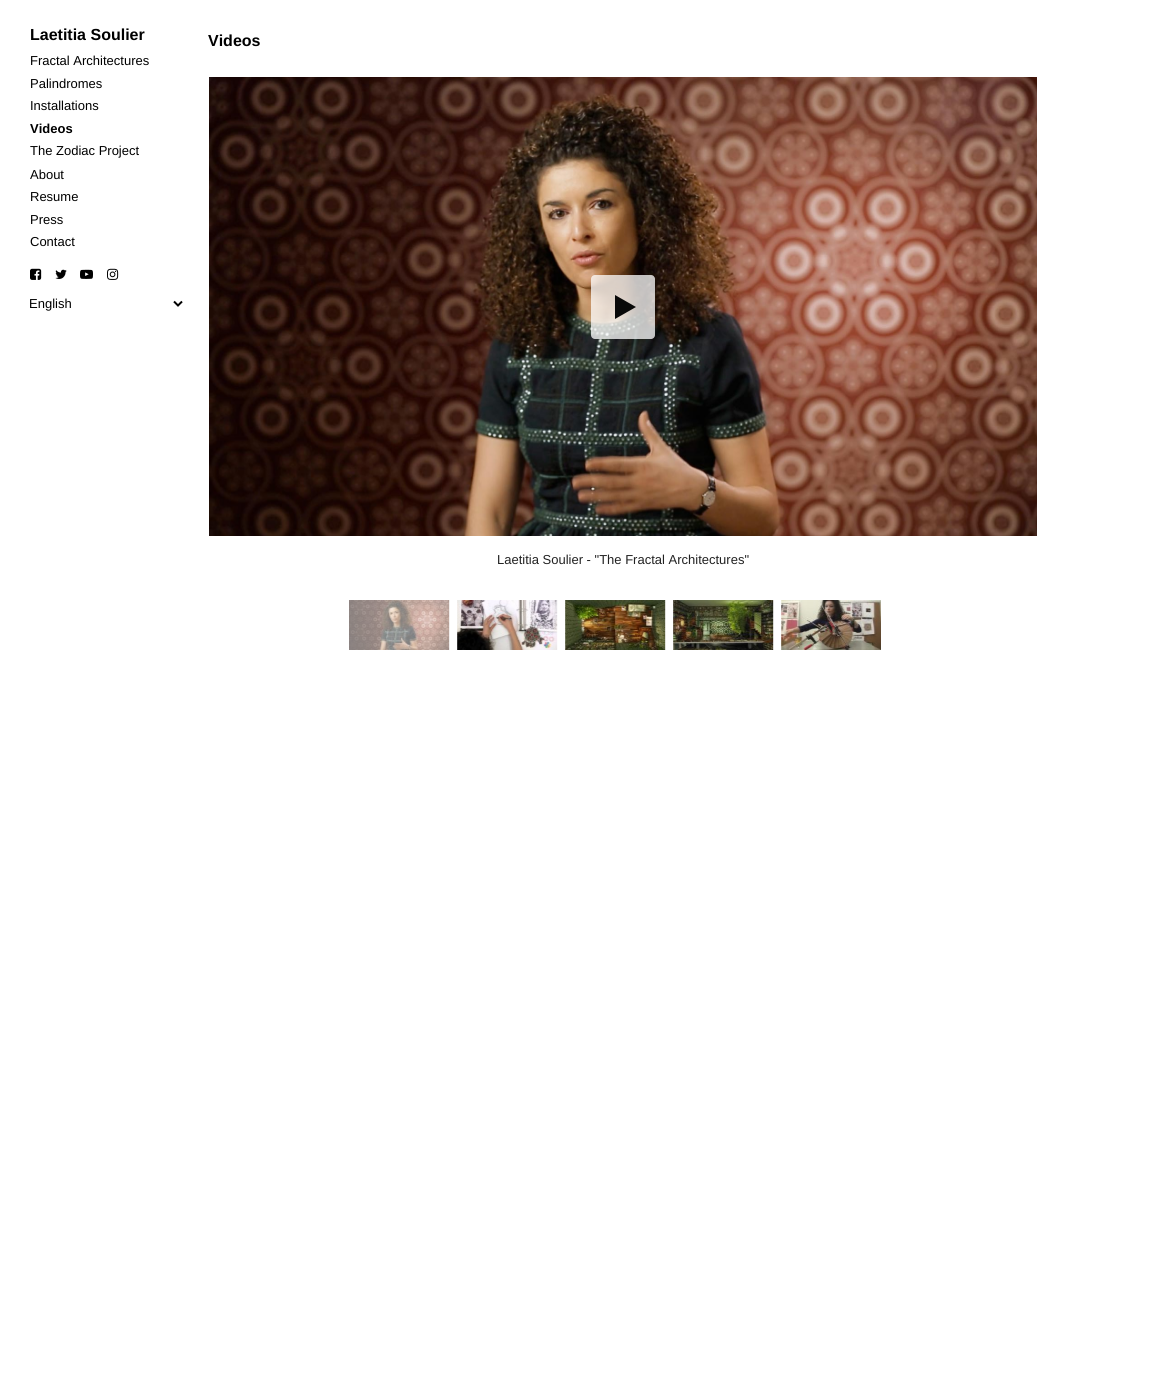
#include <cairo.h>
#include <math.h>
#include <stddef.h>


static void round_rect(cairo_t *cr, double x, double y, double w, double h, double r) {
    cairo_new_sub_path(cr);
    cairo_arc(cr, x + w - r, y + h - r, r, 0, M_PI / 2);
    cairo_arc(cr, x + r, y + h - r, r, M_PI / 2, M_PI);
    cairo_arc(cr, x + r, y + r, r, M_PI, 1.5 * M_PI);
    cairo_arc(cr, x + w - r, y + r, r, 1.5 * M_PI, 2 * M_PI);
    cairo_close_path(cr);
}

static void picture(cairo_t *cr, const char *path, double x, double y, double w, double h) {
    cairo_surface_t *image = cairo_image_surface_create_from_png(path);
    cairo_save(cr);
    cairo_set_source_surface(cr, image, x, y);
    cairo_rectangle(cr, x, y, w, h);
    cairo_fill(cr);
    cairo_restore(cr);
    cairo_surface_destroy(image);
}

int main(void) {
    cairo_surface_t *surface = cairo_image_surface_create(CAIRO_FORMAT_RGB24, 1175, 1373);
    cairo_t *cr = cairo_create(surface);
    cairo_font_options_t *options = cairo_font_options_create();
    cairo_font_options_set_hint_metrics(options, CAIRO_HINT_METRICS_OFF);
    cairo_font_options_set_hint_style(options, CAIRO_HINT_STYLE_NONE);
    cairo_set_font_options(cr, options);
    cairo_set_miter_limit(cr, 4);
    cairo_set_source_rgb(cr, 1, 1, 1);
    cairo_paint(cr);
    cairo_select_font_face(cr, "Liberation Sans", CAIRO_FONT_SLANT_NORMAL, CAIRO_FONT_WEIGHT_BOLD);
    cairo_set_font_size(cr, 16);
    cairo_set_source_rgb(cr, 0, 0, 0);
    cairo_move_to(cr, 30, 40);
    cairo_show_text(cr, "Laetitia Soulier");
    cairo_select_font_face(cr, "Liberation Sans", CAIRO_FONT_SLANT_NORMAL, CAIRO_FONT_WEIGHT_NORMAL);
    cairo_set_font_size(cr, 13);
    cairo_move_to(cr, 30, 65);
    cairo_show_text(cr, "Fractal Architectures");
    cairo_move_to(cr, 30, 88);
    cairo_show_text(cr, "Palindromes");
    cairo_move_to(cr, 30, 110);
    cairo_show_text(cr, "Installations");
    cairo_select_font_face(cr, "Liberation Sans", CAIRO_FONT_SLANT_NORMAL, CAIRO_FONT_WEIGHT_BOLD);
    cairo_move_to(cr, 30, 133);
    cairo_show_text(cr, "Videos");
    cairo_select_font_face(cr, "Liberation Sans", CAIRO_FONT_SLANT_NORMAL, CAIRO_FONT_WEIGHT_NORMAL);
    cairo_move_to(cr, 30, 155);
    cairo_show_text(cr, "The Zodiac Project");
    cairo_move_to(cr, 30, 179);
    cairo_show_text(cr, "About");
    cairo_move_to(cr, 30, 201);
    cairo_show_text(cr, "Resume");
    cairo_move_to(cr, 30, 224);
    cairo_show_text(cr, "Press");
    cairo_move_to(cr, 30, 246);
    cairo_show_text(cr, "Contact");
    cairo_new_path(cr);
    cairo_move_to(cr, 174, 301.5);
    cairo_line_to(cr, 178, 305.5);
    cairo_line_to(cr, 182, 301.5);
    cairo_stroke(cr);
    cairo_move_to(cr, 29, 308);
    cairo_show_text(cr, "English");
    picture(cr, "img1.png", 30, 268, 12, 12);
    picture(cr, "img2.png", 55, 269, 12, 10);
    picture(cr, "img3.png", 80, 269, 13, 10);
    picture(cr, "img4.png", 107, 268, 12, 12);
    cairo_select_font_face(cr, "Liberation Sans", CAIRO_FONT_SLANT_NORMAL, CAIRO_FONT_WEIGHT_BOLD);
    cairo_set_font_size(cr, 16);
    cairo_move_to(cr, 208, 46);
    cairo_show_text(cr, "Videos");
    picture(cr, "img5.png", 209, 77, 828, 459);
    cairo_set_source_rgba(cr, 1, 1, 1, 0.75);
    round_rect(cr, 591, 275, 64, 64, 4);
    cairo_fill(cr);
    picture(cr, "img6.png", 615, 295, 21, 24);
    cairo_select_font_face(cr, "Liberation Sans", CAIRO_FONT_SLANT_NORMAL, CAIRO_FONT_WEIGHT_NORMAL);
    cairo_set_font_size(cr, 13);
    cairo_set_source_rgb(cr, 0.133, 0.133, 0.133);
    cairo_move_to(cr, 497, 564);
    cairo_show_text(cr, "Laetitia Soulier - \"The Fractal Architectures\"");
    picture(cr, "img7.png", 349, 600, 101, 50);
    picture(cr, "img8.png", 457, 600, 101, 50);
    picture(cr, "img9.png", 565, 600, 101, 50);
    picture(cr, "img10.png", 673, 600, 101, 50);
    picture(cr, "img11.png", 781, 600, 100, 50);
    cairo_surface_write_to_png(surface, "page.png");
    cairo_font_options_destroy(options);
    cairo_destroy(cr);
    cairo_surface_destroy(surface);
    return 0;
}
